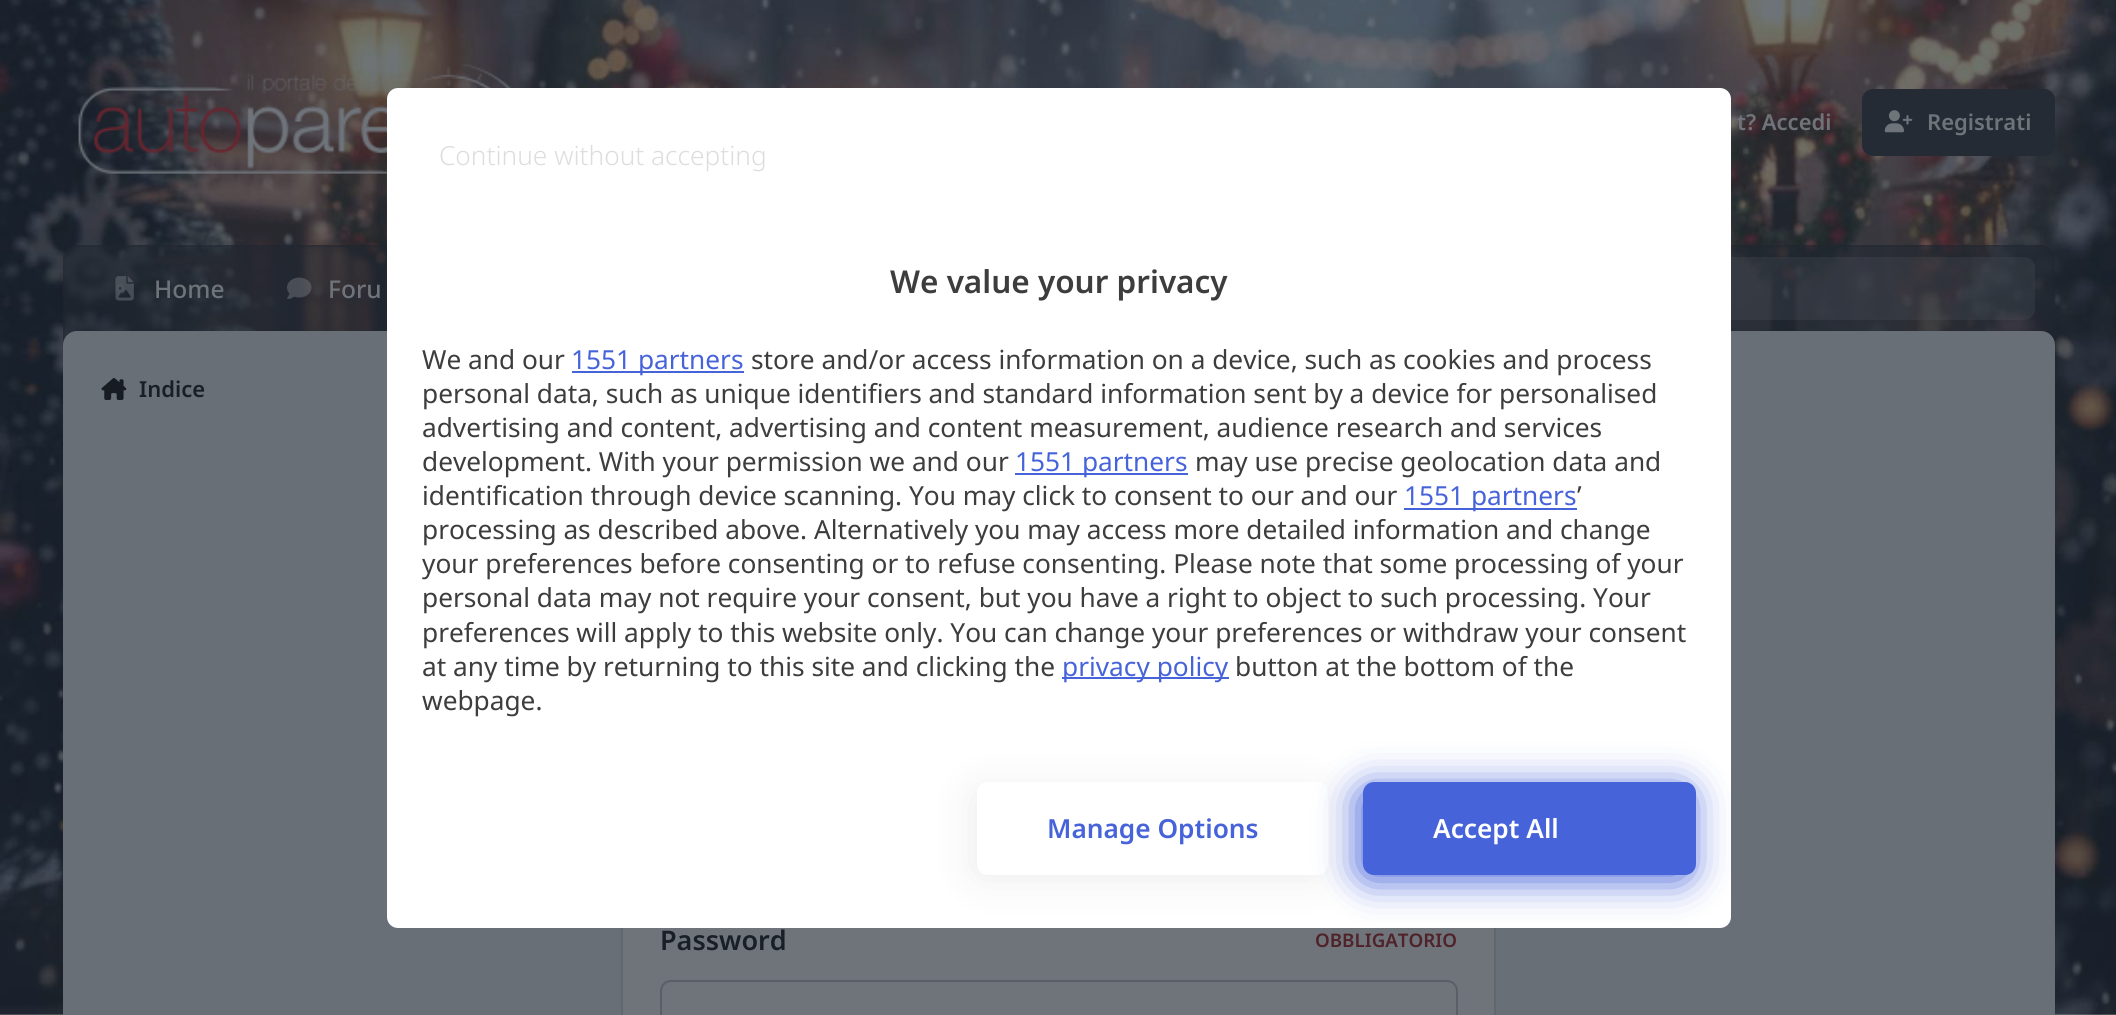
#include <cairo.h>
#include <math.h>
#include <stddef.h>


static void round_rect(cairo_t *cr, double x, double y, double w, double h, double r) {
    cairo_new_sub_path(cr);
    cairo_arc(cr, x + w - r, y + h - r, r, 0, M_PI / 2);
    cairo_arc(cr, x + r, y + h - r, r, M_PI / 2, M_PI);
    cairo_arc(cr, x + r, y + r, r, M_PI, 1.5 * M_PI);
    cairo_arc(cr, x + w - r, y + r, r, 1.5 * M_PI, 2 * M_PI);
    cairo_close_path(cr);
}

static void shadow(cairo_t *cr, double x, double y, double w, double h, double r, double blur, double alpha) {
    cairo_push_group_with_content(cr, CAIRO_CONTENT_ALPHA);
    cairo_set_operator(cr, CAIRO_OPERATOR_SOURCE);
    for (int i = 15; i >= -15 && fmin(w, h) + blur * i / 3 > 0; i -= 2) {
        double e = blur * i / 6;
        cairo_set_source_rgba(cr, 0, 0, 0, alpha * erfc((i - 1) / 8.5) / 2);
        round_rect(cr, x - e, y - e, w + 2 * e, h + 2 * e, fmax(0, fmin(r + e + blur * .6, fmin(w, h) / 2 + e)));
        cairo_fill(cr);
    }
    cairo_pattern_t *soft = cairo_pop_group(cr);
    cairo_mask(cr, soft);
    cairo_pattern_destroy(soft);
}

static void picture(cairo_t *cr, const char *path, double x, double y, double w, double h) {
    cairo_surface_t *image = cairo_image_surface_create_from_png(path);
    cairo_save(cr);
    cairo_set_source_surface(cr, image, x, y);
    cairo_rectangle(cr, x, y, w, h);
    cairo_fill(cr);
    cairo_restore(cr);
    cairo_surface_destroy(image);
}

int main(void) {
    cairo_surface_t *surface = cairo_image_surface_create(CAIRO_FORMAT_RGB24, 2116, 1015);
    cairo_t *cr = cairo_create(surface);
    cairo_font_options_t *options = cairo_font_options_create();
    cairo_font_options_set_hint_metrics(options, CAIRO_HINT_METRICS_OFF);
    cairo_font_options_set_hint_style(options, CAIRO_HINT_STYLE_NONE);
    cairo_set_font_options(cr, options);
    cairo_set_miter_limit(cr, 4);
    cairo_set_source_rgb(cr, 1, 1, 1);
    cairo_paint(cr);
    picture(cr, "img1.png", 0, 0, 2116, 1015);
    picture(cr, "img2.png", 78, 64, 434, 110);
    cairo_select_font_face(cr, "Noto Sans SemiBold", CAIRO_FONT_SLANT_NORMAL, CAIRO_FONT_WEIGHT_NORMAL);
    cairo_set_font_size(cr, 22);
    cairo_set_source_rgb(cr, 0.435, 0.455, 0.482);
    cairo_move_to(cr, 1737, 130);
    cairo_show_text(cr, "t? Accedi");
    cairo_set_source_rgb(cr, 0.145, 0.169, 0.208);
    round_rect(cr, 1862, 89, 193, 67, 11);
    cairo_fill(cr);
    picture(cr, "img3.png", 1884, 110, 29, 23);
    cairo_set_source_rgb(cr, 0.435, 0.455, 0.482);
    cairo_move_to(cr, 1927, 130);
    cairo_show_text(cr, "Registrati");
    cairo_set_source_rgba(cr, 0.125, 0.153, 0.192, 0.6);
    cairo_new_path(cr);
    cairo_move_to(cr, 77, 245);
    cairo_line_to(cr, 2041, 245);
    cairo_curve_to(cr, 2048.5, 245, 2055, 251.5, 2055, 259);
    cairo_line_to(cr, 2055, 348);
    cairo_line_to(cr, 63, 348);
    cairo_line_to(cr, 63, 259);
    cairo_curve_to(cr, 63, 251.5, 69.5, 245, 77, 245);
    cairo_close_path(cr);
    cairo_fill(cr);
    cairo_set_source_rgba(cr, 0.125, 0.153, 0.192, 0.25);
    cairo_set_fill_rule(cr, CAIRO_FILL_RULE_EVEN_ODD);
    cairo_new_path(cr);
    cairo_move_to(cr, 77, 245);
    cairo_line_to(cr, 2040, 245);
    cairo_curve_to(cr, 2048, 245, 2054, 251, 2054, 259);
    cairo_line_to(cr, 2054, 348);
    cairo_line_to(cr, 63, 348);
    cairo_line_to(cr, 63, 259);
    cairo_curve_to(cr, 63, 251, 69, 245, 77, 245);
    cairo_close_path(cr);
    cairo_move_to(cr, 77, 247);
    cairo_line_to(cr, 2040, 247);
    cairo_curve_to(cr, 2047, 247, 2053, 252, 2053, 259);
    cairo_line_to(cr, 2053, 348);
    cairo_line_to(cr, 65, 348);
    cairo_line_to(cr, 65, 259);
    cairo_curve_to(cr, 65, 252, 70, 247, 77, 247);
    cairo_close_path(cr);
    cairo_fill(cr);
    picture(cr, "img4.png", 115, 276, 19, 25);
    cairo_select_font_face(cr, "Noto Sans Medium", CAIRO_FONT_SLANT_NORMAL, CAIRO_FONT_WEIGHT_NORMAL);
    cairo_set_font_size(cr, 24.5);
    cairo_set_source_rgb(cr, 0.435, 0.455, 0.482);
    cairo_move_to(cr, 154, 298);
    cairo_show_text(cr, "Home");
    picture(cr, "img5.png", 287, 277, 25, 22);
    cairo_move_to(cr, 328, 298);
    cairo_show_text(cr, "Foru");
    cairo_set_source_rgba(cr, 0.435, 0.455, 0.482, 0.15);
    round_rect(cr, 1545, 257, 490, 63, 11);
    cairo_fill(cr);
    cairo_set_source_rgb(cr, 0.082, 0.106, 0.133);
    shadow(cr, 63, 331, 1992, 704, 14, 2, 0.1);
    cairo_set_source_rgb(cr, 0.412, 0.435, 0.467);
    round_rect(cr, 63, 331, 1992, 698, 14);
    cairo_fill(cr);
    picture(cr, "img6.png", 101, 378, 26, 22);
    cairo_select_font_face(cr, "Noto Sans SemiBold", CAIRO_FONT_SLANT_NORMAL, CAIRO_FONT_WEIGHT_NORMAL);
    cairo_set_font_size(cr, 22);
    cairo_set_source_rgb(cr, 0.098, 0.122, 0.153);
    cairo_move_to(cr, 139, 397);
    cairo_show_text(cr, "Indice");
    cairo_set_source_rgb(cr, 0.435, 0.455, 0.482);
    cairo_rectangle(cr, 623, 928, 871, 87);
    cairo_fill(cr);
    cairo_rectangle(cr, 622, 461, 873, 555);
    cairo_set_source_rgb(cr, 0.38, 0.404, 0.439);
    cairo_stroke(cr);
    cairo_set_font_size(cr, 27);
    cairo_set_source_rgb(cr, 0.098, 0.122, 0.153);
    cairo_move_to(cr, 660, 950);
    cairo_show_text(cr, "Password");
    cairo_set_font_size(cr, 18.75);
    cairo_set_source_rgb(cr, 0.314, 0.133, 0.161);
    cairo_move_to(cr, 1315, 947);
    cairo_show_text(cr, "OBBLIGATORIO");
    round_rect(cr, 661, 981, 796, 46, 10);
    cairo_set_source_rgb(cr, 0.345, 0.373, 0.404);
    cairo_stroke(cr);
    cairo_set_source_rgb(cr, 1, 1, 1);
    round_rect(cr, 387, 88, 1344, 840, 11);
    cairo_fill(cr);
    cairo_select_font_face(cr, "Noto Sans Light", CAIRO_FONT_SLANT_NORMAL, CAIRO_FONT_WEIGHT_NORMAL);
    cairo_set_font_size(cr, 26.25);
    cairo_set_source_rgb(cr, 0.867, 0.867, 0.867);
    cairo_move_to(cr, 439, 165);
    cairo_show_text(cr, "Continue without accepting");
    cairo_select_font_face(cr, "Noto Sans SemiBold", CAIRO_FONT_SLANT_NORMAL, CAIRO_FONT_WEIGHT_NORMAL);
    cairo_set_font_size(cr, 31.5);
    cairo_set_source_rgb(cr, 0.239, 0.239, 0.239);
    cairo_move_to(cr, 890, 293);
    cairo_show_text(cr, "We value your privacy");
    cairo_select_font_face(cr, "Noto Sans", CAIRO_FONT_SLANT_NORMAL, CAIRO_FONT_WEIGHT_NORMAL);
    cairo_set_font_size(cr, 26.25);
    cairo_move_to(cr, 422, 369);
    cairo_show_text(cr, "We and our");
    cairo_set_source_rgb(cr, 0.275, 0.388, 0.855);
    cairo_rectangle(cr, 572, 371, 172, 2);
    cairo_fill(cr);
    cairo_move_to(cr, 571, 369);
    cairo_show_text(cr, "1551 partners");
    cairo_set_source_rgb(cr, 0.239, 0.239, 0.239);
    cairo_move_to(cr, 751, 369);
    cairo_show_text(cr, "store and/or access information on a device, such as cookies and process");
    cairo_move_to(cr, 422, 403);
    cairo_show_text(cr, "personal data, such as unique identifiers and standard information sent by a device for personalised");
    cairo_move_to(cr, 422, 437);
    cairo_show_text(cr, "advertising and content, advertising and content measurement, audience research and services");
    cairo_move_to(cr, 422, 471);
    cairo_show_text(cr, "development. With your permission we and our");
    cairo_set_source_rgb(cr, 0.275, 0.388, 0.855);
    cairo_rectangle(cr, 1015, 473, 173, 2);
    cairo_fill(cr);
    cairo_move_to(cr, 1015, 471);
    cairo_show_text(cr, "1551 partners");
    cairo_set_source_rgb(cr, 0.239, 0.239, 0.239);
    cairo_move_to(cr, 1195, 471);
    cairo_show_text(cr, "may use precise geolocation data and");
    cairo_move_to(cr, 422, 505);
    cairo_show_text(cr, "identification through device scanning. You may click to consent to our and our");
    cairo_set_source_rgb(cr, 0.275, 0.388, 0.855);
    cairo_rectangle(cr, 1404, 508, 173, 2);
    cairo_fill(cr);
    cairo_move_to(cr, 1404, 505);
    cairo_show_text(cr, "1551 partners");
    cairo_set_source_rgb(cr, 0.239, 0.239, 0.239);
    cairo_move_to(cr, 1577, 505);
    cairo_show_text(cr, "’");
    cairo_move_to(cr, 422, 539);
    cairo_show_text(cr, "processing as described above. Alternatively you may access more detailed information and change");
    cairo_move_to(cr, 422, 573);
    cairo_show_text(cr, "your preferences before consenting or to refuse consenting. Please note that some processing of your");
    cairo_move_to(cr, 422, 607);
    cairo_show_text(cr, "personal data may not require your consent, but you have a right to object to such processing. Your");
    cairo_move_to(cr, 422, 642);
    cairo_show_text(cr, "preferences will apply to this website only. You can change your preferences or withdraw your consent");
    cairo_move_to(cr, 422, 676);
    cairo_show_text(cr, "at any time by returning to this site and clicking the");
    cairo_set_source_rgb(cr, 0.275, 0.388, 0.855);
    cairo_rectangle(cr, 1062, 677, 167, 2);
    cairo_fill(cr);
    cairo_move_to(cr, 1062, 676);
    cairo_show_text(cr, "privacy policy");
    cairo_set_source_rgb(cr, 0.239, 0.239, 0.239);
    cairo_move_to(cr, 1235, 676);
    cairo_show_text(cr, "button at the bottom of the");
    cairo_move_to(cr, 422, 710);
    cairo_show_text(cr, "webpage.");
    cairo_set_source_rgb(cr, 0.769, 0.769, 0.769);
    shadow(cr, 971, 788, 352, 92, 11, 19, 0.3);
    cairo_set_source_rgb(cr, 1, 1, 1);
    round_rect(cr, 977, 782, 351, 93, 11);
    cairo_fill(cr);
    cairo_select_font_face(cr, "Noto Sans SemiBold", CAIRO_FONT_SLANT_NORMAL, CAIRO_FONT_WEIGHT_NORMAL);
    cairo_set_source_rgb(cr, 0.275, 0.388, 0.855);
    cairo_move_to(cr, 1047, 838);
    cairo_show_text(cr, "Manage Options");
    cairo_save(cr);
    cairo_set_fill_rule(cr, CAIRO_FILL_RULE_WINDING);
    round_rect(cr, 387, 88, 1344, 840, 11);
    cairo_clip(cr);
    cairo_set_source_rgb(cr, 0.275, 0.388, 0.855);
    shadow(cr, 1358, 788, 333, 92, 11, 19, 1);
    cairo_restore(cr);
    round_rect(cr, 1363, 782, 333, 93, 11);
    cairo_fill(cr);
    cairo_set_source_rgb(cr, 1, 1, 1);
    cairo_move_to(cr, 1433, 838);
    cairo_show_text(cr, "Accept All");
    cairo_surface_write_to_png(surface, "page.png");
    cairo_font_options_destroy(options);
    cairo_destroy(cr);
    cairo_surface_destroy(surface);
    return 0;
}
